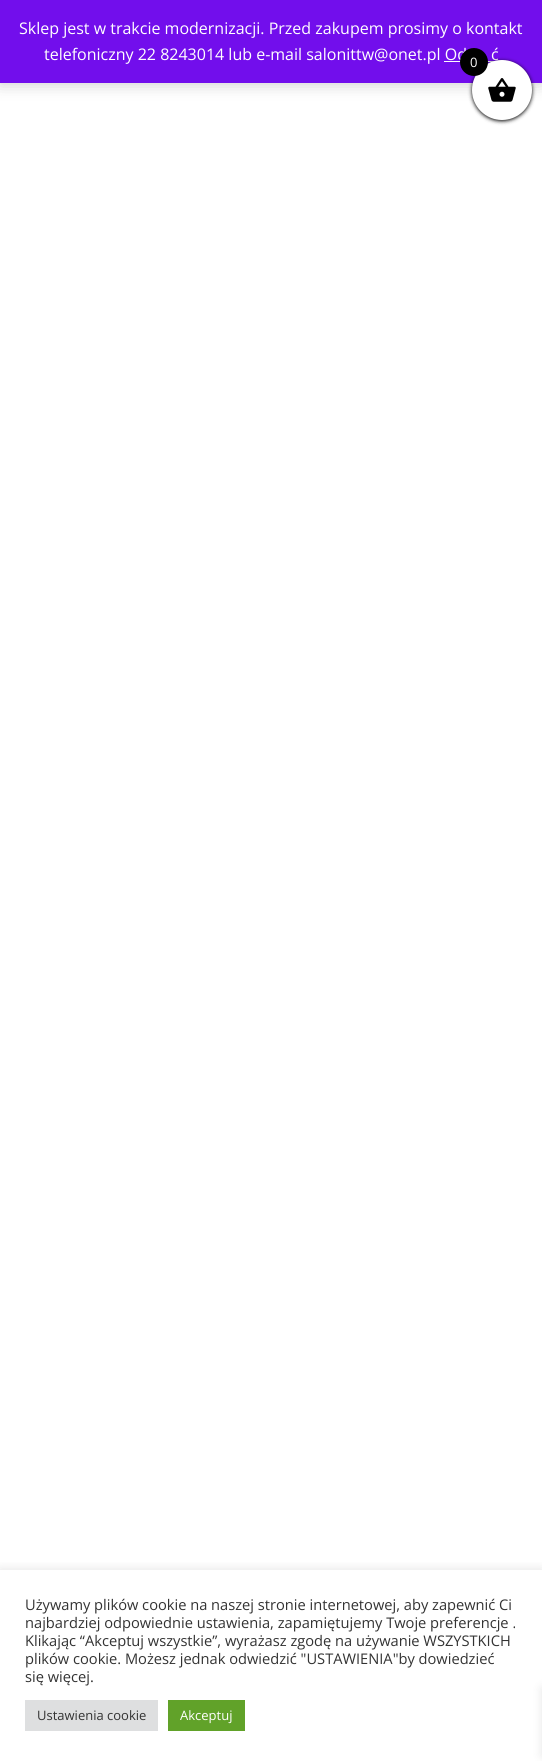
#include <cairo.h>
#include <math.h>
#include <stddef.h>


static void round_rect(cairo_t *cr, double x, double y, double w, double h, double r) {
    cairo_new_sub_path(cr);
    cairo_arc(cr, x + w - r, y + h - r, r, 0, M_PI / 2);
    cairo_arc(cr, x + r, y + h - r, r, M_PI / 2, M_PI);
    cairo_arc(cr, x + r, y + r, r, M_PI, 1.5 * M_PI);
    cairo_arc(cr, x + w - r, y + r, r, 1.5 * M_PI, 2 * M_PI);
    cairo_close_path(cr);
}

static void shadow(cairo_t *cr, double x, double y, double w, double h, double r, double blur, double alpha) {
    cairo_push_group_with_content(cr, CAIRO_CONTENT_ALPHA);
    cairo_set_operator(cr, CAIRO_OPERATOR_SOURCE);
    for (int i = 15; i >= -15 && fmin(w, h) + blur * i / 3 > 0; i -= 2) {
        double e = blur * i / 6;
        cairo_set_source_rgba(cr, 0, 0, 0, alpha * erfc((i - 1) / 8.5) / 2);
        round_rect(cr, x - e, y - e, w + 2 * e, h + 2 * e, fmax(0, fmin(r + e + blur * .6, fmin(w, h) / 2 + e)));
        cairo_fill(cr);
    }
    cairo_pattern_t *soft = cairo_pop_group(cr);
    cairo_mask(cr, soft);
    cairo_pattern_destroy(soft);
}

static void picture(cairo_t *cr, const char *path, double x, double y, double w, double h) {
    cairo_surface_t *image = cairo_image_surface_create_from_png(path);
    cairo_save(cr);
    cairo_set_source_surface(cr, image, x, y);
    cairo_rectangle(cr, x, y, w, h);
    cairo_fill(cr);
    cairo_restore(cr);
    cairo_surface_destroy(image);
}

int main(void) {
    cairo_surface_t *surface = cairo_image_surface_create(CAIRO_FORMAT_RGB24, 542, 1761);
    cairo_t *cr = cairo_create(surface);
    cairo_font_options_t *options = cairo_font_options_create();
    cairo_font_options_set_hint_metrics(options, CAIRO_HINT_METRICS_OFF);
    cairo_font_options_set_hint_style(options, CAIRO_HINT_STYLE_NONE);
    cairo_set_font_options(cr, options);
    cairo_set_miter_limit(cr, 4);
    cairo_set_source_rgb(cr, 1, 1, 1);
    cairo_paint(cr);
    cairo_set_source_rgb(cr, 0, 0, 0);
    shadow(cr, 0, 1, 542, 83, 0, 8, 0.2);
    cairo_set_source_rgb(cr, 0.447, 0.055, 0.925);
    cairo_rectangle(cr, 0, 0, 542, 83);
    cairo_fill(cr);
    cairo_select_font_face(cr, "Open Sans", CAIRO_FONT_SLANT_NORMAL, CAIRO_FONT_WEIGHT_NORMAL);
    cairo_set_font_size(cr, 16);
    cairo_set_source_rgb(cr, 1, 1, 1);
    cairo_move_to(cr, 19, 34);
    cairo_show_text(cr, "Sklep jest w trakcie modernizacji. Przed zakupem prosimy o kontakt");
    cairo_move_to(cr, 44, 60);
    cairo_show_text(cr, "telefoniczny 22 8243014 lub e-mail salonittw@onet.pl Od");
    cairo_move_to(cr, 491, 60);
    cairo_show_text(cr, "ć");
    cairo_set_source_rgb(cr, 0.988, 0.984, 0.996);
    cairo_rectangle(cr, 444, 61, 54, 1);
    cairo_fill(cr);
    cairo_set_source_rgb(cr, 0, 0, 0);
    shadow(cr, 472, 61, 60, 60, 30, 2, 1);
    cairo_set_source_rgb(cr, 1, 1, 1);
    cairo_arc(cr, 502, 90, 30, 0, 2 * M_PI);
    cairo_fill(cr);
    cairo_set_source_rgb(cr, 0, 0, 0);
    cairo_arc(cr, 474, 62, 14, 0, 2 * M_PI);
    cairo_fill(cr);
    cairo_set_font_size(cr, 13);
    cairo_set_source_rgb(cr, 1, 1, 1);
    cairo_move_to(cr, 470, 67);
    cairo_show_text(cr, "0");
    picture(cr, "img1.png", 488, 78, 28, 24);
    cairo_set_source_rgb(cr, 0, 0, 0);
    shadow(cr, 542, 1688, 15, 68, 0, 5, 0.1);
    cairo_save(cr);
    cairo_rectangle(cr, 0, 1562, 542, 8);
    cairo_clip(cr);
    cairo_set_source_rgb(cr, 0.675, 0.671, 0.671);
    shadow(cr, 0, 1569, 542, 191, 0, 5, 0.3);
    cairo_restore(cr);
    cairo_set_font_size(cr, 14.65);
    cairo_set_source_rgb(cr, 0.2, 0.2, 0.2);
    cairo_move_to(cr, 25, 1610);
    cairo_show_text(cr, "Używamy plików cookie na naszej stronie internetowej, aby zapewnić Ci");
    cairo_move_to(cr, 25, 1628);
    cairo_show_text(cr, "najbardziej odpowiednie ustawienia, zapamiętujemy Twoje preferencje .");
    cairo_move_to(cr, 25, 1646);
    cairo_show_text(cr, "Klikając “Akceptuj wszystkie”, wyrażasz zgodę na używanie WSZYSTKICH");
    cairo_move_to(cr, 25, 1664);
    cairo_show_text(cr, "plików cookie. Możesz jednak odwiedzić \"USTAWIENIA\"by dowiedzieć");
    cairo_move_to(cr, 25, 1682);
    cairo_show_text(cr, "się więcej.");
    cairo_set_source_rgb(cr, 0.871, 0.875, 0.878);
    cairo_rectangle(cr, 25, 1700, 133, 31);
    cairo_fill(cr);
    cairo_set_font_size(cr, 13);
    cairo_set_source_rgb(cr, 0.2, 0.2, 0.2);
    cairo_move_to(cr, 37, 1720);
    cairo_show_text(cr, "Ustawienia cookie");
    cairo_set_source_rgb(cr, 0.38, 0.635, 0.161);
    cairo_rectangle(cr, 168, 1700, 77, 31);
    cairo_fill(cr);
    cairo_set_source_rgb(cr, 1, 1, 1);
    cairo_move_to(cr, 180, 1720);
    cairo_show_text(cr, "Akceptuj");
    cairo_surface_write_to_png(surface, "page.png");
    cairo_font_options_destroy(options);
    cairo_destroy(cr);
    cairo_surface_destroy(surface);
    return 0;
}
